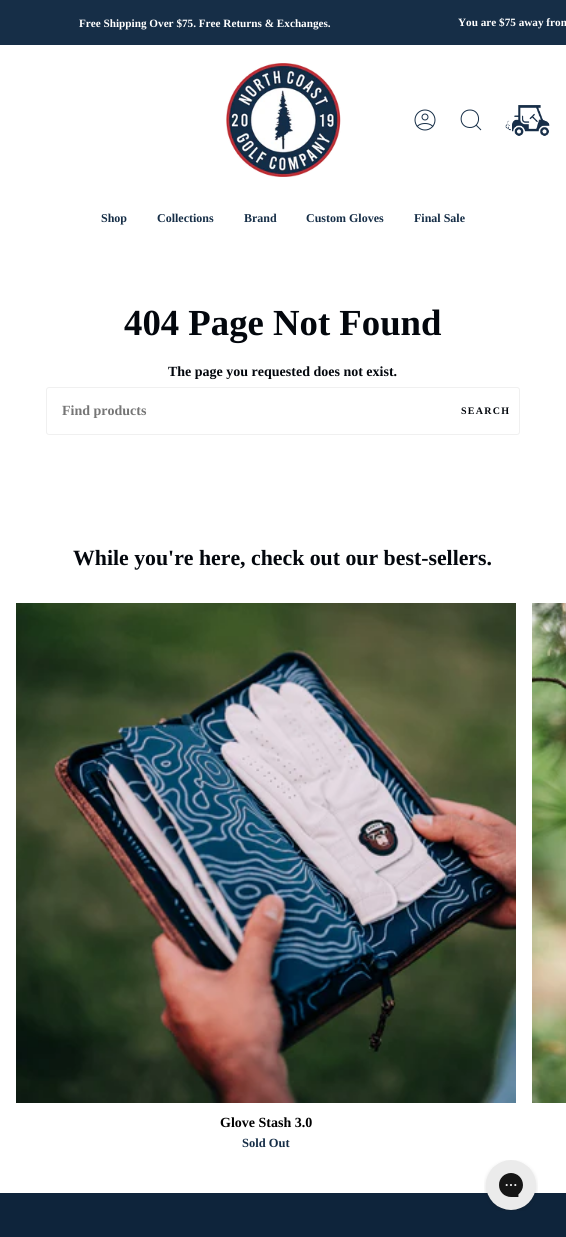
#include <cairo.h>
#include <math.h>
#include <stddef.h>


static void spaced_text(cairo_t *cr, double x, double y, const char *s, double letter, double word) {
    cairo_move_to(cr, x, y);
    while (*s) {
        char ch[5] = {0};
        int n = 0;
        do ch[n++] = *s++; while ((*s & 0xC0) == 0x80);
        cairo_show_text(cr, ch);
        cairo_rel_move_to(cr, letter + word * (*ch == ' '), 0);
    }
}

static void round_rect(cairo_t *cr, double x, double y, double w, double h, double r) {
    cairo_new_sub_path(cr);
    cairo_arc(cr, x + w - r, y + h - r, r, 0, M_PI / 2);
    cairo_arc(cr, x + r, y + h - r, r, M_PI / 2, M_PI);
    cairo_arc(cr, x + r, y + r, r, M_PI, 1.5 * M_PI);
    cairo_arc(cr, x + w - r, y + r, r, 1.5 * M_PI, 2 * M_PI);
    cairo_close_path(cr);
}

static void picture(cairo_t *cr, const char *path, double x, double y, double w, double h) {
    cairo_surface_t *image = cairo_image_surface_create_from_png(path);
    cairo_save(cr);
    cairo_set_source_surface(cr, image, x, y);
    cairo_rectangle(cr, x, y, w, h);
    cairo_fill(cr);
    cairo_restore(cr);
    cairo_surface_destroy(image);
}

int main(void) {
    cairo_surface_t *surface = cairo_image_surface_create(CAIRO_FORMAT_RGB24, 566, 1237);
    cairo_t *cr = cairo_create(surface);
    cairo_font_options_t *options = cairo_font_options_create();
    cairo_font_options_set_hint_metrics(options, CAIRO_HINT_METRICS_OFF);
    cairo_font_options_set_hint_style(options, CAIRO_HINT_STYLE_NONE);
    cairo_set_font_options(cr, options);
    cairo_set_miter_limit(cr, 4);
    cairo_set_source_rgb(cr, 1, 1, 1);
    cairo_paint(cr);
    cairo_set_source_rgb(cr, 0.086, 0.18, 0.278);
    cairo_rectangle(cr, 0, 0, 566, 45);
    cairo_fill(cr);
    cairo_select_font_face(cr, "Liberation Serif", CAIRO_FONT_SLANT_NORMAL, CAIRO_FONT_WEIGHT_BOLD);
    cairo_set_font_size(cr, 11.2);
    cairo_set_source_rgb(cr, 1, 1, 1);
    cairo_move_to(cr, 79, 27);
    cairo_show_text(cr, "Free Shipping Over $75. Free Returns & Exchanges.");
    cairo_move_to(cr, 458, 26);
    cairo_show_text(cr, "You are $75 away from");
    picture(cr, "img1.png", 226, 63, 115, 114);
    picture(cr, "img2.png", 414, 109, 22, 22);
    cairo_new_path(cr);
    cairo_move_to(cr, 470, 110);
    cairo_curve_to(cr, 481.5, 110, 481.5, 128, 469.5, 127.5);
    cairo_curve_to(cr, 458, 127, 458.5, 110, 470, 110);
    cairo_close_path(cr);
    cairo_move_to(cr, 476, 125);
    cairo_line_to(cr, 481, 130);
    cairo_set_source_rgb(cr, 0.086, 0.18, 0.278);
    cairo_set_line_width(cr, 1);
    cairo_stroke(cr);
    picture(cr, "img3.png", 505, 105, 45, 31);
    cairo_set_font_size(cr, 12);
    cairo_move_to(cr, 101, 222);
    cairo_show_text(cr, "Shop");
    cairo_move_to(cr, 157, 222);
    cairo_show_text(cr, "Collections");
    cairo_move_to(cr, 244, 222);
    cairo_show_text(cr, "Brand");
    cairo_move_to(cr, 306, 222);
    cairo_show_text(cr, "Custom Gloves");
    cairo_move_to(cr, 414, 222);
    cairo_show_text(cr, "Final Sale");
    cairo_set_font_size(cr, 36.75);
    cairo_set_source_rgb(cr, 0.012, 0.031, 0.051);
    cairo_move_to(cr, 124, 335);
    cairo_show_text(cr, "404 Page Not Found");
    cairo_set_font_size(cr, 14);
    cairo_move_to(cr, 168, 376);
    cairo_show_text(cr, "The page you requested does not exist.");
    round_rect(cr, 46.5, 387.5, 473, 47, 2.5);
    cairo_set_source_rgb(cr, 0.941, 0.941, 0.941);
    cairo_stroke(cr);
    cairo_set_source_rgb(cr, 0.459, 0.459, 0.459);
    cairo_move_to(cr, 62, 415);
    cairo_show_text(cr, "Find products");
    cairo_set_font_size(cr, 10);
    cairo_set_source_rgb(cr, 0.012, 0.031, 0.051);
    spaced_text(cr, 461, 414, "SEARCH", 1.25, 0);
    cairo_set_font_size(cr, 21.8);
    cairo_move_to(cr, 73, 565);
    cairo_show_text(cr, "While you're here, check out our best-sellers.");
    picture(cr, "img4.png", 532, 603, 34, 500);
    picture(cr, "img5.png", 16, 603, 500, 500);
    cairo_set_font_size(cr, 14);
    cairo_set_source_rgb(cr, 0, 0, 0);
    cairo_move_to(cr, 220, 1127);
    cairo_show_text(cr, "Glove Stash 3.0");
    cairo_set_font_size(cr, 12.5);
    cairo_set_source_rgb(cr, 0.086, 0.18, 0.278);
    cairo_move_to(cr, 242, 1147);
    cairo_show_text(cr, "Sold Out");
    cairo_set_source_rgb(cr, 0.055, 0.141, 0.231);
    cairo_rectangle(cr, 0, 1193, 566, 44);
    cairo_fill(cr);
    picture(cr, "img6.png", 484, 1160, 54, 51);
    cairo_surface_write_to_png(surface, "page.png");
    cairo_font_options_destroy(options);
    cairo_destroy(cr);
    cairo_surface_destroy(surface);
    return 0;
}
